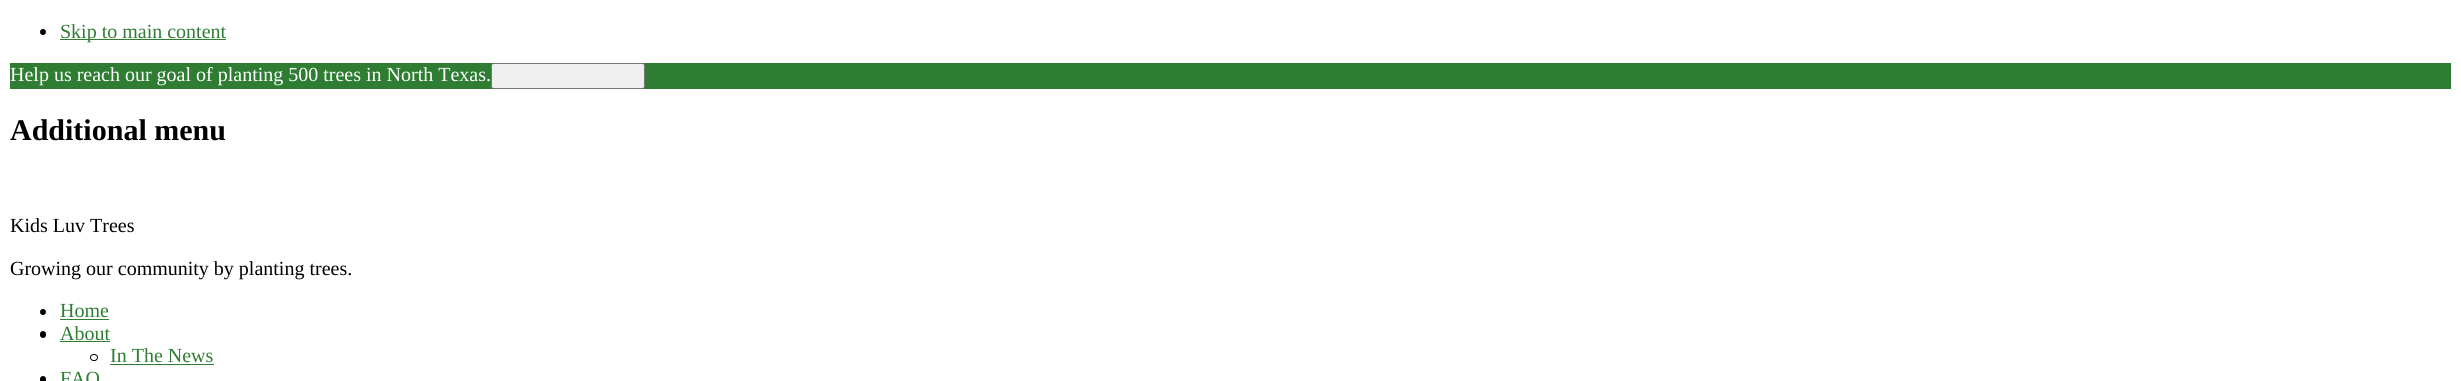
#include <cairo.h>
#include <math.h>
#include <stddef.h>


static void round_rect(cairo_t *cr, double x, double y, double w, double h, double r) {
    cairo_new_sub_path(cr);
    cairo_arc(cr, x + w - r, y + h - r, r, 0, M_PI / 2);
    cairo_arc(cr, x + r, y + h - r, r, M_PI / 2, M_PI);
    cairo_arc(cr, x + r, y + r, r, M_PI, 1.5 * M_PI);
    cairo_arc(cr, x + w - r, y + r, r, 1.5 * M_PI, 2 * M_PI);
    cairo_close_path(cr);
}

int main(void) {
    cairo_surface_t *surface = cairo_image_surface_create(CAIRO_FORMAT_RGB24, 2461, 381);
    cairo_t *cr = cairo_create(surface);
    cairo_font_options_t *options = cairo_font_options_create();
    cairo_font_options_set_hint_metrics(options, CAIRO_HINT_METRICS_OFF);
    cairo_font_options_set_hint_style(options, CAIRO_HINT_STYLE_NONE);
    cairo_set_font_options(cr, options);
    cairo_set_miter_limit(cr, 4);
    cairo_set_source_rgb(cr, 1, 1, 1);
    cairo_paint(cr);
    cairo_set_source_rgb(cr, 0, 0, 0);
    cairo_arc(cr, 43, 32, 3, 0, 2 * M_PI);
    cairo_fill(cr);
    cairo_set_source_rgb(cr, 0.18, 0.49, 0.196);
    cairo_rectangle(cr, 60, 39, 166, 1);
    cairo_fill(cr);
    cairo_select_font_face(cr, "Liberation Serif", CAIRO_FONT_SLANT_NORMAL, CAIRO_FONT_WEIGHT_NORMAL);
    cairo_set_font_size(cr, 20);
    cairo_move_to(cr, 60, 38);
    cairo_show_text(cr, "Skip to main content");
    cairo_rectangle(cr, 10, 63, 2441, 26);
    cairo_fill(cr);
    cairo_set_source_rgb(cr, 1, 1, 1);
    cairo_move_to(cr, 10, 81);
    cairo_show_text(cr, "Help us reach our goal of planting 500 trees in North Texas.");
    cairo_set_source_rgb(cr, 0.937, 0.937, 0.937);
    round_rect(cr, 491.5, 63.5, 153, 25, 2);
    cairo_fill_preserve(cr);
    cairo_set_source_rgb(cr, 0.463, 0.463, 0.463);
    cairo_set_line_width(cr, 1);
    cairo_stroke(cr);
    cairo_select_font_face(cr, "Liberation Serif", CAIRO_FONT_SLANT_NORMAL, CAIRO_FONT_WEIGHT_BOLD);
    cairo_set_font_size(cr, 30);
    cairo_set_source_rgb(cr, 0, 0, 0);
    cairo_move_to(cr, 10, 140);
    cairo_show_text(cr, "Additional menu");
    cairo_select_font_face(cr, "Liberation Serif", CAIRO_FONT_SLANT_NORMAL, CAIRO_FONT_WEIGHT_NORMAL);
    cairo_set_font_size(cr, 20);
    cairo_move_to(cr, 10, 232);
    cairo_show_text(cr, "Kids Luv Trees");
    cairo_move_to(cr, 10, 275);
    cairo_show_text(cr, "Growing our community by planting trees.");
    cairo_new_path(cr);
    cairo_arc(cr, 43, 312, 3, 0, 2 * M_PI);
    cairo_fill(cr);
    cairo_set_source_rgb(cr, 0.18, 0.49, 0.196);
    cairo_move_to(cr, 60, 317);
    cairo_show_text(cr, "Home");
    cairo_rectangle(cr, 60, 319, 49, 1);
    cairo_fill(cr);
    cairo_set_source_rgb(cr, 0, 0, 0);
    round_rect(cr, 40, 331, 6, 7, 3);
    cairo_fill(cr);
    cairo_set_source_rgb(cr, 0.18, 0.49, 0.196);
    cairo_move_to(cr, 60, 340);
    cairo_show_text(cr, "About");
    cairo_rectangle(cr, 60, 341, 50, 1);
    cairo_fill(cr);
    round_rect(cr, 90.5, 354.5, 7, 6, 3);
    cairo_set_source_rgb(cr, 0, 0, 0);
    cairo_stroke(cr);
    cairo_set_source_rgb(cr, 0.18, 0.49, 0.196);
    cairo_move_to(cr, 110, 362);
    cairo_show_text(cr, "In The News");
    cairo_rectangle(cr, 110, 364, 104, 1);
    cairo_fill(cr);
    cairo_set_source_rgb(cr, 0, 0, 0);
    round_rect(cr, 40, 376, 6, 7, 3);
    cairo_fill(cr);
    cairo_set_source_rgb(cr, 0.18, 0.49, 0.196);
    cairo_move_to(cr, 60, 385);
    cairo_show_text(cr, "FAQ");
    cairo_surface_write_to_png(surface, "page.png");
    cairo_font_options_destroy(options);
    cairo_destroy(cr);
    cairo_surface_destroy(surface);
    return 0;
}
